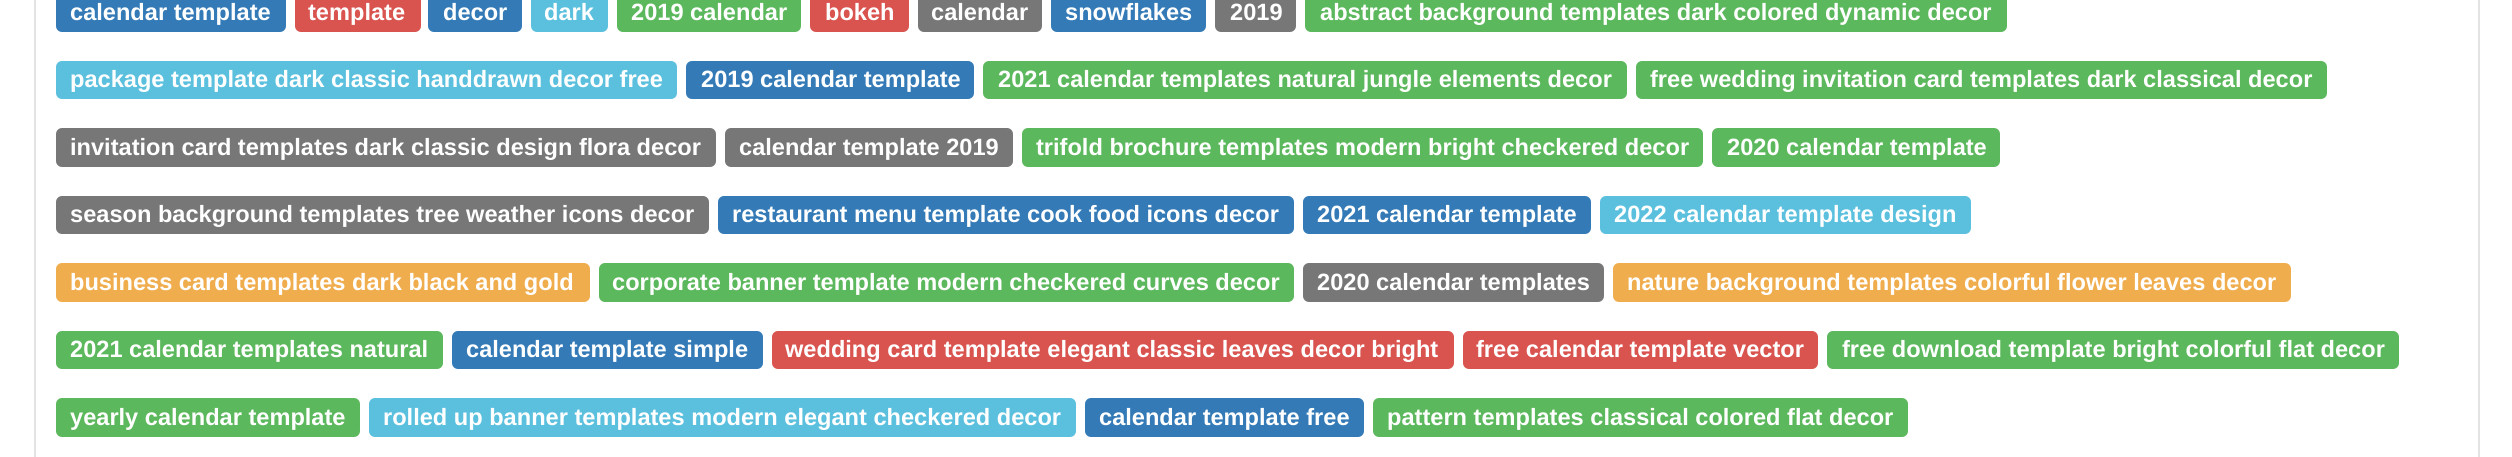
#include <cairo.h>
#include <math.h>
#include <stddef.h>


static void round_rect(cairo_t *cr, double x, double y, double w, double h, double r) {
    cairo_new_sub_path(cr);
    cairo_arc(cr, x + w - r, y + h - r, r, 0, M_PI / 2);
    cairo_arc(cr, x + r, y + h - r, r, M_PI / 2, M_PI);
    cairo_arc(cr, x + r, y + r, r, M_PI, 1.5 * M_PI);
    cairo_arc(cr, x + w - r, y + r, r, 1.5 * M_PI, 2 * M_PI);
    cairo_close_path(cr);
}

int main(void) {
    cairo_surface_t *surface = cairo_image_surface_create(CAIRO_FORMAT_RGB24, 2512, 457);
    cairo_t *cr = cairo_create(surface);
    cairo_font_options_t *options = cairo_font_options_create();
    cairo_font_options_set_hint_metrics(options, CAIRO_HINT_METRICS_OFF);
    cairo_font_options_set_hint_style(options, CAIRO_HINT_STYLE_NONE);
    cairo_set_font_options(cr, options);
    cairo_set_miter_limit(cr, 4);
    cairo_set_source_rgb(cr, 1, 1, 1);
    cairo_paint(cr);
    cairo_rectangle(cr, 35, -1, 2444, 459);
    cairo_set_source_rgb(cr, 0.89, 0.89, 0.89);
    cairo_stroke(cr);
    cairo_set_source_rgb(cr, 0.2, 0.478, 0.718);
    round_rect(cr, 56, -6, 230, 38, 6);
    cairo_fill(cr);
    cairo_select_font_face(cr, "Liberation Sans", CAIRO_FONT_SLANT_NORMAL, CAIRO_FONT_WEIGHT_BOLD);
    cairo_set_font_size(cr, 23.6);
    cairo_set_source_rgb(cr, 1, 1, 1);
    cairo_move_to(cr, 70, 20);
    cairo_show_text(cr, "calendar template");
    cairo_set_source_rgb(cr, 0.851, 0.325, 0.31);
    round_rect(cr, 295, -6, 126, 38, 6);
    cairo_fill(cr);
    cairo_set_source_rgb(cr, 1, 1, 1);
    cairo_move_to(cr, 308, 20);
    cairo_show_text(cr, "template");
    cairo_set_source_rgb(cr, 0.2, 0.478, 0.718);
    round_rect(cr, 428, -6, 94, 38, 6);
    cairo_fill(cr);
    cairo_set_source_rgb(cr, 1, 1, 1);
    cairo_move_to(cr, 443, 20);
    cairo_show_text(cr, "decor");
    cairo_set_source_rgb(cr, 0.357, 0.753, 0.871);
    round_rect(cr, 531, -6, 77, 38, 6);
    cairo_fill(cr);
    cairo_set_source_rgb(cr, 1, 1, 1);
    cairo_move_to(cr, 544, 20);
    cairo_show_text(cr, "dark");
    cairo_set_source_rgb(cr, 0.361, 0.722, 0.361);
    round_rect(cr, 617, -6, 184, 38, 6);
    cairo_fill(cr);
    cairo_set_source_rgb(cr, 1, 1, 1);
    cairo_move_to(cr, 631, 20);
    cairo_show_text(cr, "2019 calendar");
    cairo_set_source_rgb(cr, 0.851, 0.325, 0.31);
    round_rect(cr, 810, -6, 99, 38, 6);
    cairo_fill(cr);
    cairo_set_source_rgb(cr, 1, 1, 1);
    cairo_move_to(cr, 825, 20);
    cairo_show_text(cr, "bokeh");
    cairo_set_source_rgb(cr, 0.467, 0.467, 0.467);
    round_rect(cr, 918, -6, 124, 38, 6);
    cairo_fill(cr);
    cairo_set_source_rgb(cr, 1, 1, 1);
    cairo_move_to(cr, 931, 20);
    cairo_show_text(cr, "calendar");
    cairo_set_source_rgb(cr, 0.2, 0.478, 0.718);
    round_rect(cr, 1051, -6, 155, 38, 6);
    cairo_fill(cr);
    cairo_set_source_rgb(cr, 1, 1, 1);
    cairo_move_to(cr, 1065, 20);
    cairo_show_text(cr, "snowflakes");
    cairo_set_source_rgb(cr, 0.467, 0.467, 0.467);
    round_rect(cr, 1215, -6, 81, 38, 6);
    cairo_fill(cr);
    cairo_set_source_rgb(cr, 1, 1, 1);
    cairo_move_to(cr, 1230, 20);
    cairo_show_text(cr, "2019");
    cairo_set_source_rgb(cr, 0.361, 0.722, 0.361);
    round_rect(cr, 1305, -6, 702, 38, 6);
    cairo_fill(cr);
    cairo_set_source_rgb(cr, 1, 1, 1);
    cairo_move_to(cr, 1320, 20);
    cairo_show_text(cr, "abstract background templates dark colored dynamic decor");
    cairo_set_source_rgb(cr, 0.357, 0.753, 0.871);
    round_rect(cr, 56, 61, 621, 38, 6);
    cairo_fill(cr);
    cairo_set_source_rgb(cr, 1, 1, 1);
    cairo_move_to(cr, 70, 87);
    cairo_show_text(cr, "package template dark classic handdrawn decor free");
    cairo_set_source_rgb(cr, 0.2, 0.478, 0.718);
    round_rect(cr, 686, 61, 288, 38, 6);
    cairo_fill(cr);
    cairo_set_source_rgb(cr, 1, 1, 1);
    cairo_move_to(cr, 701, 87);
    cairo_show_text(cr, "2019 calendar template");
    cairo_set_source_rgb(cr, 0.361, 0.722, 0.361);
    round_rect(cr, 983, 61, 644, 38, 6);
    cairo_fill(cr);
    cairo_set_source_rgb(cr, 1, 1, 1);
    cairo_move_to(cr, 998, 87);
    cairo_show_text(cr, "2021 calendar templates natural jungle elements decor");
    cairo_set_source_rgb(cr, 0.361, 0.722, 0.361);
    round_rect(cr, 1636, 61, 691, 38, 6);
    cairo_fill(cr);
    cairo_set_source_rgb(cr, 1, 1, 1);
    cairo_move_to(cr, 1650, 87);
    cairo_show_text(cr, "free wedding invitation card templates dark classical decor");
    cairo_set_source_rgb(cr, 0.467, 0.467, 0.467);
    round_rect(cr, 56, 128, 660, 39, 6);
    cairo_fill(cr);
    cairo_set_source_rgb(cr, 1, 1, 1);
    cairo_move_to(cr, 70, 155);
    cairo_show_text(cr, "invitation card templates dark classic design flora decor");
    cairo_set_source_rgb(cr, 0.467, 0.467, 0.467);
    round_rect(cr, 725, 128, 288, 39, 6);
    cairo_fill(cr);
    cairo_set_source_rgb(cr, 1, 1, 1);
    cairo_move_to(cr, 739, 155);
    cairo_show_text(cr, "calendar template 2019");
    cairo_set_source_rgb(cr, 0.361, 0.722, 0.361);
    round_rect(cr, 1022, 128, 681, 39, 6);
    cairo_fill(cr);
    cairo_set_source_rgb(cr, 1, 1, 1);
    cairo_move_to(cr, 1036, 155);
    cairo_show_text(cr, "trifold brochure templates modern bright checkered decor");
    cairo_set_source_rgb(cr, 0.361, 0.722, 0.361);
    round_rect(cr, 1712, 128, 288, 39, 6);
    cairo_fill(cr);
    cairo_set_source_rgb(cr, 1, 1, 1);
    cairo_move_to(cr, 1727, 155);
    cairo_show_text(cr, "2020 calendar template");
    cairo_set_source_rgb(cr, 0.467, 0.467, 0.467);
    round_rect(cr, 56, 196, 653, 38, 6);
    cairo_fill(cr);
    cairo_set_source_rgb(cr, 1, 1, 1);
    cairo_move_to(cr, 70, 222);
    cairo_show_text(cr, "season background templates tree weather icons decor");
    cairo_set_source_rgb(cr, 0.2, 0.478, 0.718);
    round_rect(cr, 718, 196, 576, 38, 6);
    cairo_fill(cr);
    cairo_set_source_rgb(cr, 1, 1, 1);
    cairo_move_to(cr, 732, 222);
    cairo_show_text(cr, "restaurant menu template cook food icons decor");
    cairo_set_source_rgb(cr, 0.2, 0.478, 0.718);
    round_rect(cr, 1303, 196, 288, 38, 6);
    cairo_fill(cr);
    cairo_set_source_rgb(cr, 1, 1, 1);
    cairo_move_to(cr, 1317, 222);
    cairo_show_text(cr, "2021 calendar template");
    cairo_set_source_rgb(cr, 0.357, 0.753, 0.871);
    round_rect(cr, 1600, 196, 371, 38, 6);
    cairo_fill(cr);
    cairo_set_source_rgb(cr, 1, 1, 1);
    cairo_move_to(cr, 1614, 222);
    cairo_show_text(cr, "2022 calendar template design");
    cairo_set_source_rgb(cr, 0.941, 0.678, 0.306);
    round_rect(cr, 56, 263, 534, 39, 6);
    cairo_fill(cr);
    cairo_set_source_rgb(cr, 1, 1, 1);
    cairo_move_to(cr, 70, 290);
    cairo_show_text(cr, "business card templates dark black and gold");
    cairo_set_source_rgb(cr, 0.361, 0.722, 0.361);
    round_rect(cr, 599, 263, 695, 39, 6);
    cairo_fill(cr);
    cairo_set_source_rgb(cr, 1, 1, 1);
    cairo_move_to(cr, 612, 290);
    cairo_show_text(cr, "corporate banner template modern checkered curves decor");
    cairo_set_source_rgb(cr, 0.467, 0.467, 0.467);
    round_rect(cr, 1303, 263, 301, 39, 6);
    cairo_fill(cr);
    cairo_set_source_rgb(cr, 1, 1, 1);
    cairo_move_to(cr, 1317, 290);
    cairo_show_text(cr, "2020 calendar templates");
    cairo_set_source_rgb(cr, 0.941, 0.678, 0.306);
    round_rect(cr, 1613, 263, 678, 39, 6);
    cairo_fill(cr);
    cairo_set_source_rgb(cr, 1, 1, 1);
    cairo_move_to(cr, 1627, 290);
    cairo_show_text(cr, "nature background templates colorful flower leaves decor");
    cairo_set_source_rgb(cr, 0.361, 0.722, 0.361);
    round_rect(cr, 56, 331, 387, 38, 6);
    cairo_fill(cr);
    cairo_set_source_rgb(cr, 1, 1, 1);
    cairo_move_to(cr, 70, 357);
    cairo_show_text(cr, "2021 calendar templates natural");
    cairo_set_source_rgb(cr, 0.2, 0.478, 0.718);
    round_rect(cr, 452, 331, 311, 38, 6);
    cairo_fill(cr);
    cairo_set_source_rgb(cr, 1, 1, 1);
    cairo_move_to(cr, 466, 357);
    cairo_show_text(cr, "calendar template simple");
    cairo_set_source_rgb(cr, 0.851, 0.325, 0.31);
    round_rect(cr, 772, 331, 682, 38, 6);
    cairo_fill(cr);
    cairo_set_source_rgb(cr, 1, 1, 1);
    cairo_move_to(cr, 785, 357);
    cairo_show_text(cr, "wedding card template elegant classic leaves decor bright");
    cairo_set_source_rgb(cr, 0.851, 0.325, 0.31);
    round_rect(cr, 1463, 331, 355, 38, 6);
    cairo_fill(cr);
    cairo_set_source_rgb(cr, 1, 1, 1);
    cairo_move_to(cr, 1476, 357);
    cairo_show_text(cr, "free calendar template vector");
    cairo_set_source_rgb(cr, 0.361, 0.722, 0.361);
    round_rect(cr, 1827, 331, 572, 38, 6);
    cairo_fill(cr);
    cairo_set_source_rgb(cr, 1, 1, 1);
    cairo_move_to(cr, 1842, 357);
    cairo_show_text(cr, "free download template bright colorful flat decor");
    cairo_set_source_rgb(cr, 0.361, 0.722, 0.361);
    round_rect(cr, 56, 398, 304, 39, 6);
    cairo_fill(cr);
    cairo_set_source_rgb(cr, 1, 1, 1);
    cairo_move_to(cr, 70, 425);
    cairo_show_text(cr, "yearly calendar template");
    cairo_set_source_rgb(cr, 0.357, 0.753, 0.871);
    round_rect(cr, 369, 398, 707, 39, 6);
    cairo_fill(cr);
    cairo_set_source_rgb(cr, 1, 1, 1);
    cairo_move_to(cr, 383, 425);
    cairo_show_text(cr, "rolled up banner templates modern elegant checkered decor");
    cairo_set_source_rgb(cr, 0.2, 0.478, 0.718);
    round_rect(cr, 1085, 398, 279, 39, 6);
    cairo_fill(cr);
    cairo_set_source_rgb(cr, 1, 1, 1);
    cairo_move_to(cr, 1099, 425);
    cairo_show_text(cr, "calendar template free");
    cairo_set_source_rgb(cr, 0.361, 0.722, 0.361);
    round_rect(cr, 1373, 398, 535, 39, 6);
    cairo_fill(cr);
    cairo_set_source_rgb(cr, 1, 1, 1);
    cairo_move_to(cr, 1387, 425);
    cairo_show_text(cr, "pattern templates classical colored flat decor");
    cairo_surface_write_to_png(surface, "page.png");
    cairo_font_options_destroy(options);
    cairo_destroy(cr);
    cairo_surface_destroy(surface);
    return 0;
}
